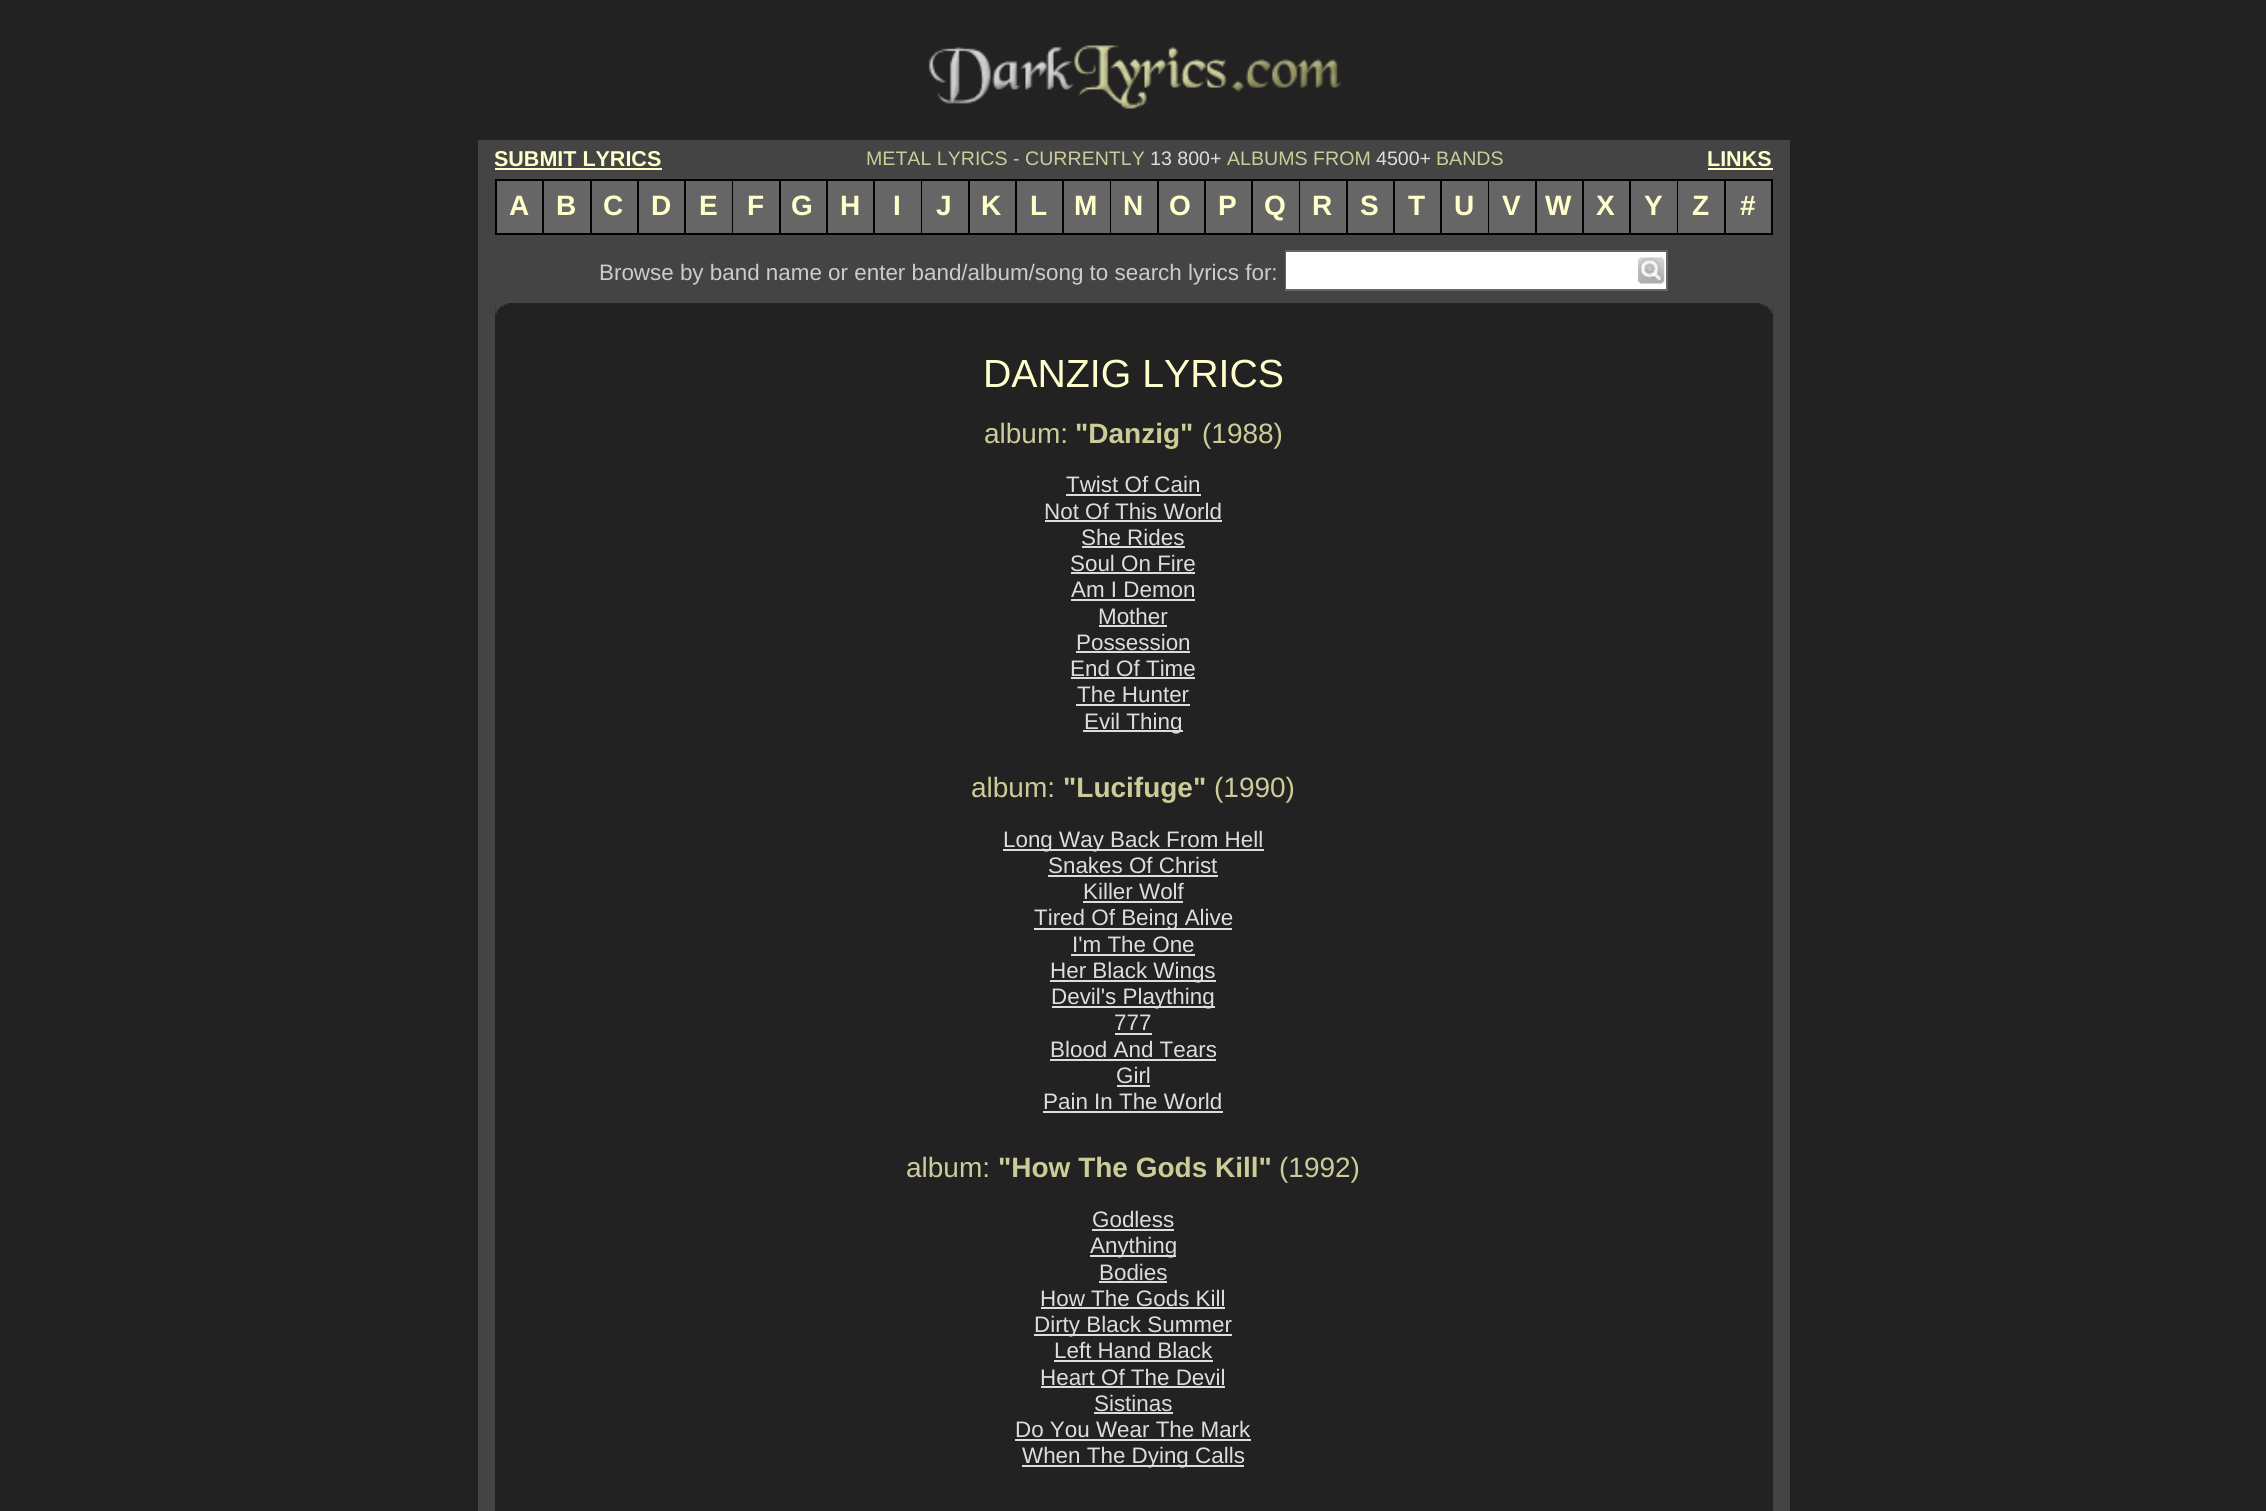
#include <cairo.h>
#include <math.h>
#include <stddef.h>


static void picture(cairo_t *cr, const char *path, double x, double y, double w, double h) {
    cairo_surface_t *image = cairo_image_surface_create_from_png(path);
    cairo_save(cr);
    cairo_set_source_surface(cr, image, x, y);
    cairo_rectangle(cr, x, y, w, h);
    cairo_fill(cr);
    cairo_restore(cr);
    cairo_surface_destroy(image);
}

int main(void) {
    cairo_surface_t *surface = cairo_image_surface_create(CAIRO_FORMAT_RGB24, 2266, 1511);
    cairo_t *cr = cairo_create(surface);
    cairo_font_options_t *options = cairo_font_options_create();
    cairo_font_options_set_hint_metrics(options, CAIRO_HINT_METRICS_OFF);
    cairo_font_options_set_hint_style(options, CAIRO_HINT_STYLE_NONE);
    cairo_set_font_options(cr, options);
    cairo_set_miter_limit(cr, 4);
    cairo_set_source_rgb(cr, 0.133, 0.133, 0.133);
    cairo_paint(cr);
    picture(cr, "img1.png", 928, 45, 414, 64);
    cairo_set_source_rgb(cr, 0.267, 0.267, 0.267);
    cairo_rectangle(cr, 478, 140, 1312, 1371);
    cairo_fill(cr);
    cairo_select_font_face(cr, "Liberation Sans", CAIRO_FONT_SLANT_NORMAL, CAIRO_FONT_WEIGHT_BOLD);
    cairo_set_font_size(cr, 21.5);
    cairo_set_source_rgb(cr, 1, 1, 0.8);
    cairo_move_to(cr, 494, 166);
    cairo_show_text(cr, "SUBMIT LYRICS");
    cairo_rectangle(cr, 495, 168, 167, 2);
    cairo_fill(cr);
    cairo_select_font_face(cr, "Liberation Sans", CAIRO_FONT_SLANT_NORMAL, CAIRO_FONT_WEIGHT_NORMAL);
    cairo_set_font_size(cr, 19.6);
    cairo_set_source_rgb(cr, 0.8, 0.8, 0.6);
    cairo_move_to(cr, 866, 165);
    cairo_show_text(cr, "METAL LYRICS - CURRENTLY");
    cairo_set_source_rgb(cr, 0.867, 0.867, 0.867);
    cairo_move_to(cr, 1150, 165);
    cairo_show_text(cr, "13 800+");
    cairo_set_source_rgb(cr, 0.8, 0.8, 0.6);
    cairo_move_to(cr, 1227, 165);
    cairo_show_text(cr, "ALBUMS FROM");
    cairo_set_source_rgb(cr, 0.867, 0.867, 0.867);
    cairo_move_to(cr, 1376, 165);
    cairo_show_text(cr, "4500+");
    cairo_set_source_rgb(cr, 0.8, 0.8, 0.6);
    cairo_move_to(cr, 1436, 165);
    cairo_show_text(cr, "BANDS");
    cairo_select_font_face(cr, "Liberation Sans", CAIRO_FONT_SLANT_NORMAL, CAIRO_FONT_WEIGHT_BOLD);
    cairo_set_font_size(cr, 21.5);
    cairo_set_source_rgb(cr, 1, 1, 0.8);
    cairo_move_to(cr, 1707, 166);
    cairo_show_text(cr, "LINKS");
    cairo_rectangle(cr, 1708, 168, 65, 2);
    cairo_fill(cr);
    cairo_set_source_rgb(cr, 0.4, 0.4, 0.4);
    cairo_rectangle(cr, 496, 180, 47, 54);
    cairo_fill_preserve(cr);
    cairo_set_source_rgb(cr, 0, 0, 0);
    cairo_stroke(cr);
    cairo_set_font_size(cr, 28);
    cairo_set_source_rgb(cr, 1, 1, 0.8);
    cairo_move_to(cr, 509, 215);
    cairo_show_text(cr, "A");
    cairo_set_source_rgb(cr, 0.4, 0.4, 0.4);
    cairo_rectangle(cr, 544, 181, 46, 52);
    cairo_fill(cr);
    cairo_set_source_rgb(cr, 0, 0, 0);
    cairo_rectangle(cr, 544, 179, 1229, 2);
    cairo_fill(cr);
    cairo_rectangle(cr, 590, 179, 2, 56);
    cairo_fill(cr);
    cairo_rectangle(cr, 544, 233, 48, 2);
    cairo_fill(cr);
    cairo_set_source_rgb(cr, 1, 1, 0.8);
    cairo_move_to(cr, 556, 215);
    cairo_show_text(cr, "B");
    cairo_set_source_rgb(cr, 0.4, 0.4, 0.4);
    cairo_rectangle(cr, 592, 181, 45, 52);
    cairo_fill(cr);
    cairo_set_source_rgb(cr, 0, 0, 0);
    cairo_rectangle(cr, 637, 179, 2, 56);
    cairo_fill(cr);
    cairo_rectangle(cr, 592, 233, 47, 2);
    cairo_fill(cr);
    cairo_set_source_rgb(cr, 1, 1, 0.8);
    cairo_move_to(cr, 603, 215);
    cairo_show_text(cr, "C");
    cairo_set_source_rgb(cr, 0.4, 0.4, 0.4);
    cairo_rectangle(cr, 639, 181, 45, 52);
    cairo_fill(cr);
    cairo_set_source_rgb(cr, 0, 0, 0);
    cairo_rectangle(cr, 684, 179, 2, 56);
    cairo_fill(cr);
    cairo_rectangle(cr, 639, 233, 47, 2);
    cairo_fill(cr);
    cairo_set_source_rgb(cr, 1, 1, 0.8);
    cairo_move_to(cr, 651, 215);
    cairo_show_text(cr, "D");
    cairo_set_source_rgb(cr, 0.4, 0.4, 0.4);
    cairo_rectangle(cr, 686, 181, 46, 52);
    cairo_fill(cr);
    cairo_set_source_rgb(cr, 0, 0, 0);
    cairo_rectangle(cr, 732, 179, 1, 56);
    cairo_fill(cr);
    cairo_rectangle(cr, 686, 233, 47, 2);
    cairo_fill(cr);
    cairo_set_source_rgb(cr, 1, 1, 0.8);
    cairo_move_to(cr, 699, 215);
    cairo_show_text(cr, "E");
    cairo_set_source_rgb(cr, 0.4, 0.4, 0.4);
    cairo_rectangle(cr, 733, 181, 46, 52);
    cairo_fill(cr);
    cairo_set_source_rgb(cr, 0, 0, 0);
    cairo_rectangle(cr, 779, 179, 2, 56);
    cairo_fill(cr);
    cairo_rectangle(cr, 733, 233, 48, 2);
    cairo_fill(cr);
    cairo_set_source_rgb(cr, 1, 1, 0.8);
    cairo_move_to(cr, 747, 215);
    cairo_show_text(cr, "F");
    cairo_set_source_rgb(cr, 0.4, 0.4, 0.4);
    cairo_rectangle(cr, 781, 181, 45, 52);
    cairo_fill(cr);
    cairo_set_source_rgb(cr, 0, 0, 0);
    cairo_rectangle(cr, 826, 179, 2, 56);
    cairo_fill(cr);
    cairo_rectangle(cr, 781, 233, 47, 2);
    cairo_fill(cr);
    cairo_set_source_rgb(cr, 1, 1, 0.8);
    cairo_move_to(cr, 791, 215);
    cairo_show_text(cr, "G");
    cairo_set_source_rgb(cr, 0.4, 0.4, 0.4);
    cairo_rectangle(cr, 828, 181, 45, 52);
    cairo_fill(cr);
    cairo_set_source_rgb(cr, 0, 0, 0);
    cairo_rectangle(cr, 873, 179, 2, 56);
    cairo_fill(cr);
    cairo_rectangle(cr, 828, 233, 47, 2);
    cairo_fill(cr);
    cairo_set_source_rgb(cr, 1, 1, 0.8);
    cairo_move_to(cr, 840, 215);
    cairo_show_text(cr, "H");
    cairo_set_source_rgb(cr, 0.4, 0.4, 0.4);
    cairo_rectangle(cr, 875, 181, 46, 52);
    cairo_fill(cr);
    cairo_set_source_rgb(cr, 0, 0, 0);
    cairo_rectangle(cr, 921, 179, 1, 56);
    cairo_fill(cr);
    cairo_rectangle(cr, 875, 233, 47, 2);
    cairo_fill(cr);
    cairo_set_source_rgb(cr, 1, 1, 0.8);
    cairo_move_to(cr, 893, 215);
    cairo_show_text(cr, "I");
    cairo_set_source_rgb(cr, 0.4, 0.4, 0.4);
    cairo_rectangle(cr, 922, 181, 46, 52);
    cairo_fill(cr);
    cairo_set_source_rgb(cr, 0, 0, 0);
    cairo_rectangle(cr, 968, 179, 2, 56);
    cairo_fill(cr);
    cairo_rectangle(cr, 922, 233, 48, 2);
    cairo_fill(cr);
    cairo_set_source_rgb(cr, 1, 1, 0.8);
    cairo_move_to(cr, 936, 215);
    cairo_show_text(cr, "J");
    cairo_set_source_rgb(cr, 0.4, 0.4, 0.4);
    cairo_rectangle(cr, 970, 181, 45, 52);
    cairo_fill(cr);
    cairo_set_source_rgb(cr, 0, 0, 0);
    cairo_rectangle(cr, 1015, 179, 2, 56);
    cairo_fill(cr);
    cairo_rectangle(cr, 970, 233, 47, 2);
    cairo_fill(cr);
    cairo_set_source_rgb(cr, 1, 1, 0.8);
    cairo_move_to(cr, 981, 215);
    cairo_show_text(cr, "K");
    cairo_set_source_rgb(cr, 0.4, 0.4, 0.4);
    cairo_rectangle(cr, 1017, 181, 45, 52);
    cairo_fill(cr);
    cairo_set_source_rgb(cr, 0, 0, 0);
    cairo_rectangle(cr, 1062, 179, 2, 56);
    cairo_fill(cr);
    cairo_rectangle(cr, 1017, 233, 47, 2);
    cairo_fill(cr);
    cairo_set_source_rgb(cr, 1, 1, 0.8);
    cairo_move_to(cr, 1030, 215);
    cairo_show_text(cr, "L");
    cairo_set_source_rgb(cr, 0.4, 0.4, 0.4);
    cairo_rectangle(cr, 1064, 181, 46, 52);
    cairo_fill(cr);
    cairo_set_source_rgb(cr, 0, 0, 0);
    cairo_rectangle(cr, 1110, 179, 1, 56);
    cairo_fill(cr);
    cairo_rectangle(cr, 1064, 233, 47, 2);
    cairo_fill(cr);
    cairo_set_source_rgb(cr, 1, 1, 0.8);
    cairo_move_to(cr, 1074, 215);
    cairo_show_text(cr, "M");
    cairo_set_source_rgb(cr, 0.4, 0.4, 0.4);
    cairo_rectangle(cr, 1111, 181, 46, 52);
    cairo_fill(cr);
    cairo_set_source_rgb(cr, 0, 0, 0);
    cairo_rectangle(cr, 1157, 179, 2, 56);
    cairo_fill(cr);
    cairo_rectangle(cr, 1111, 233, 48, 2);
    cairo_fill(cr);
    cairo_set_source_rgb(cr, 1, 1, 0.8);
    cairo_move_to(cr, 1123, 215);
    cairo_show_text(cr, "N");
    cairo_set_source_rgb(cr, 0.4, 0.4, 0.4);
    cairo_rectangle(cr, 1159, 181, 45, 52);
    cairo_fill(cr);
    cairo_set_source_rgb(cr, 0, 0, 0);
    cairo_rectangle(cr, 1204, 179, 2, 56);
    cairo_fill(cr);
    cairo_rectangle(cr, 1159, 233, 47, 2);
    cairo_fill(cr);
    cairo_set_source_rgb(cr, 1, 1, 0.8);
    cairo_move_to(cr, 1169, 215);
    cairo_show_text(cr, "O");
    cairo_set_source_rgb(cr, 0.4, 0.4, 0.4);
    cairo_rectangle(cr, 1206, 181, 45, 52);
    cairo_fill(cr);
    cairo_set_source_rgb(cr, 0, 0, 0);
    cairo_rectangle(cr, 1251, 179, 2, 56);
    cairo_fill(cr);
    cairo_rectangle(cr, 1206, 233, 47, 2);
    cairo_fill(cr);
    cairo_set_source_rgb(cr, 1, 1, 0.8);
    cairo_move_to(cr, 1218, 215);
    cairo_show_text(cr, "P");
    cairo_set_source_rgb(cr, 0.4, 0.4, 0.4);
    cairo_rectangle(cr, 1253, 181, 46, 52);
    cairo_fill(cr);
    cairo_set_source_rgb(cr, 0, 0, 0);
    cairo_rectangle(cr, 1299, 179, 1, 56);
    cairo_fill(cr);
    cairo_rectangle(cr, 1253, 233, 47, 2);
    cairo_fill(cr);
    cairo_set_source_rgb(cr, 1, 1, 0.8);
    cairo_move_to(cr, 1264, 215);
    cairo_show_text(cr, "Q");
    cairo_set_source_rgb(cr, 0.4, 0.4, 0.4);
    cairo_rectangle(cr, 1300, 181, 46, 52);
    cairo_fill(cr);
    cairo_set_source_rgb(cr, 0, 0, 0);
    cairo_rectangle(cr, 1346, 179, 2, 56);
    cairo_fill(cr);
    cairo_rectangle(cr, 1300, 233, 48, 2);
    cairo_fill(cr);
    cairo_set_source_rgb(cr, 1, 1, 0.8);
    cairo_move_to(cr, 1312, 215);
    cairo_show_text(cr, "R");
    cairo_set_source_rgb(cr, 0.4, 0.4, 0.4);
    cairo_rectangle(cr, 1348, 181, 45, 52);
    cairo_fill(cr);
    cairo_set_source_rgb(cr, 0, 0, 0);
    cairo_rectangle(cr, 1393, 179, 2, 56);
    cairo_fill(cr);
    cairo_rectangle(cr, 1348, 233, 47, 2);
    cairo_fill(cr);
    cairo_set_source_rgb(cr, 1, 1, 0.8);
    cairo_move_to(cr, 1360, 215);
    cairo_show_text(cr, "S");
    cairo_set_source_rgb(cr, 0.4, 0.4, 0.4);
    cairo_rectangle(cr, 1395, 181, 45, 52);
    cairo_fill(cr);
    cairo_set_source_rgb(cr, 0, 0, 0);
    cairo_rectangle(cr, 1440, 179, 2, 56);
    cairo_fill(cr);
    cairo_rectangle(cr, 1395, 233, 47, 2);
    cairo_fill(cr);
    cairo_set_source_rgb(cr, 1, 1, 0.8);
    cairo_move_to(cr, 1408, 215);
    cairo_show_text(cr, "T");
    cairo_set_source_rgb(cr, 0.4, 0.4, 0.4);
    cairo_rectangle(cr, 1442, 181, 46, 52);
    cairo_fill(cr);
    cairo_set_source_rgb(cr, 0, 0, 0);
    cairo_rectangle(cr, 1488, 179, 1, 56);
    cairo_fill(cr);
    cairo_rectangle(cr, 1442, 233, 47, 2);
    cairo_fill(cr);
    cairo_set_source_rgb(cr, 1, 1, 0.8);
    cairo_move_to(cr, 1454, 215);
    cairo_show_text(cr, "U");
    cairo_set_source_rgb(cr, 0.4, 0.4, 0.4);
    cairo_rectangle(cr, 1489, 181, 46, 52);
    cairo_fill(cr);
    cairo_set_source_rgb(cr, 0, 0, 0);
    cairo_rectangle(cr, 1535, 179, 2, 56);
    cairo_fill(cr);
    cairo_rectangle(cr, 1489, 233, 48, 2);
    cairo_fill(cr);
    cairo_set_source_rgb(cr, 1, 1, 0.8);
    cairo_move_to(cr, 1502, 215);
    cairo_show_text(cr, "V");
    cairo_set_source_rgb(cr, 0.4, 0.4, 0.4);
    cairo_rectangle(cr, 1537, 181, 45, 52);
    cairo_fill(cr);
    cairo_set_source_rgb(cr, 0, 0, 0);
    cairo_rectangle(cr, 1582, 179, 2, 56);
    cairo_fill(cr);
    cairo_rectangle(cr, 1537, 233, 47, 2);
    cairo_fill(cr);
    cairo_set_source_rgb(cr, 1, 1, 0.8);
    cairo_move_to(cr, 1545, 215);
    cairo_show_text(cr, "W");
    cairo_set_source_rgb(cr, 0.4, 0.4, 0.4);
    cairo_rectangle(cr, 1584, 181, 45, 52);
    cairo_fill(cr);
    cairo_set_source_rgb(cr, 0, 0, 0);
    cairo_rectangle(cr, 1629, 179, 2, 56);
    cairo_fill(cr);
    cairo_rectangle(cr, 1584, 233, 47, 2);
    cairo_fill(cr);
    cairo_set_source_rgb(cr, 1, 1, 0.8);
    cairo_move_to(cr, 1596, 215);
    cairo_show_text(cr, "X");
    cairo_set_source_rgb(cr, 0.4, 0.4, 0.4);
    cairo_rectangle(cr, 1631, 181, 46, 52);
    cairo_fill(cr);
    cairo_set_source_rgb(cr, 0, 0, 0);
    cairo_rectangle(cr, 1677, 179, 1, 56);
    cairo_fill(cr);
    cairo_rectangle(cr, 1631, 233, 47, 2);
    cairo_fill(cr);
    cairo_set_source_rgb(cr, 1, 1, 0.8);
    cairo_move_to(cr, 1644, 215);
    cairo_show_text(cr, "Y");
    cairo_set_source_rgb(cr, 0.4, 0.4, 0.4);
    cairo_rectangle(cr, 1678, 181, 46, 52);
    cairo_fill(cr);
    cairo_set_source_rgb(cr, 0, 0, 0);
    cairo_rectangle(cr, 1724, 179, 2, 56);
    cairo_fill(cr);
    cairo_rectangle(cr, 1678, 233, 48, 2);
    cairo_fill(cr);
    cairo_set_source_rgb(cr, 1, 1, 0.8);
    cairo_move_to(cr, 1692, 215);
    cairo_show_text(cr, "Z");
    cairo_set_source_rgb(cr, 0.4, 0.4, 0.4);
    cairo_rectangle(cr, 1726, 181, 45, 52);
    cairo_fill(cr);
    cairo_set_source_rgb(cr, 0, 0, 0);
    cairo_rectangle(cr, 1771, 179, 2, 56);
    cairo_fill(cr);
    cairo_rectangle(cr, 1726, 233, 47, 2);
    cairo_fill(cr);
    cairo_set_source_rgb(cr, 1, 1, 0.8);
    cairo_move_to(cr, 1740, 215);
    cairo_show_text(cr, "#");
    cairo_select_font_face(cr, "Liberation Sans", CAIRO_FONT_SLANT_NORMAL, CAIRO_FONT_WEIGHT_NORMAL);
    cairo_set_font_size(cr, 22.4);
    cairo_set_source_rgb(cr, 0.8, 0.8, 0.8);
    cairo_move_to(cr, 599, 280);
    cairo_show_text(cr, "Browse by band name or enter band/album/song to search lyrics for:");
    cairo_set_source_rgb(cr, 0.4, 0.4, 0.4);
    cairo_rectangle(cr, 1285, 250, 383, 2);
    cairo_fill(cr);
    cairo_rectangle(cr, 1285, 289, 351, 2);
    cairo_fill(cr);
    cairo_rectangle(cr, 1285, 250, 2, 41);
    cairo_fill(cr);
    cairo_rectangle(cr, 1666, 250, 2, 41);
    cairo_fill(cr);
    cairo_rectangle(cr, 1636, 289, 32, 2);
    cairo_fill(cr);
    cairo_set_source_rgb(cr, 1, 1, 1);
    cairo_rectangle(cr, 1286, 252, 380, 37);
    cairo_fill(cr);
    picture(cr, "img2.png", 1638, 257, 27, 27);
    cairo_set_source_rgb(cr, 0.133, 0.133, 0.133);
    cairo_rectangle(cr, 495, 303, 1278, 1208);
    cairo_fill(cr);
    picture(cr, "img3.png", 495, 303, 13, 11);
    picture(cr, "img4.png", 1760, 303, 13, 11);
    cairo_set_font_size(cr, 39.25);
    cairo_set_source_rgb(cr, 1, 1, 0.8);
    cairo_move_to(cr, 983, 387);
    cairo_show_text(cr, "DANZIG LYRICS");
    cairo_set_font_size(cr, 28);
    cairo_set_source_rgb(cr, 0.8, 0.8, 0.6);
    cairo_move_to(cr, 984, 443);
    cairo_show_text(cr, "album:");
    cairo_select_font_face(cr, "Liberation Sans", CAIRO_FONT_SLANT_NORMAL, CAIRO_FONT_WEIGHT_BOLD);
    cairo_move_to(cr, 1075, 443);
    cairo_show_text(cr, "\"Danzig\"");
    cairo_select_font_face(cr, "Liberation Sans", CAIRO_FONT_SLANT_NORMAL, CAIRO_FONT_WEIGHT_NORMAL);
    cairo_move_to(cr, 1202, 443);
    cairo_show_text(cr, "(1988)");
    cairo_set_font_size(cr, 22.4);
    cairo_set_source_rgb(cr, 0.867, 0.867, 0.867);
    cairo_move_to(cr, 1066, 492);
    cairo_show_text(cr, "Twist Of Cain");
    cairo_rectangle(cr, 1066, 494, 135, 2);
    cairo_fill(cr);
    cairo_move_to(cr, 1044, 519);
    cairo_show_text(cr, "Not Of This World");
    cairo_rectangle(cr, 1045, 520, 177, 2);
    cairo_fill(cr);
    cairo_move_to(cr, 1081, 545);
    cairo_show_text(cr, "She Rides");
    cairo_rectangle(cr, 1082, 546, 103, 2);
    cairo_fill(cr);
    cairo_move_to(cr, 1070, 571);
    cairo_show_text(cr, "Soul On Fire");
    cairo_rectangle(cr, 1071, 572, 124, 2);
    cairo_fill(cr);
    cairo_move_to(cr, 1071, 597);
    cairo_show_text(cr, "Am I Demon");
    cairo_rectangle(cr, 1071, 599, 124, 2);
    cairo_fill(cr);
    cairo_move_to(cr, 1098, 624);
    cairo_show_text(cr, "Mother");
    cairo_rectangle(cr, 1099, 625, 68, 2);
    cairo_fill(cr);
    cairo_move_to(cr, 1076, 650);
    cairo_show_text(cr, "Possession");
    cairo_rectangle(cr, 1076, 651, 114, 2);
    cairo_fill(cr);
    cairo_move_to(cr, 1070, 676);
    cairo_show_text(cr, "End Of Time");
    cairo_rectangle(cr, 1071, 677, 124, 2);
    cairo_fill(cr);
    cairo_move_to(cr, 1077, 702);
    cairo_show_text(cr, "The Hunter");
    cairo_rectangle(cr, 1076, 704, 114, 2);
    cairo_fill(cr);
    cairo_rectangle(cr, 1083, 730, 100, 2);
    cairo_fill(cr);
    cairo_move_to(cr, 1084, 729);
    cairo_show_text(cr, "Evil Thing");
    cairo_set_font_size(cr, 28);
    cairo_set_source_rgb(cr, 0.8, 0.8, 0.6);
    cairo_move_to(cr, 971, 797);
    cairo_show_text(cr, "album:");
    cairo_select_font_face(cr, "Liberation Sans", CAIRO_FONT_SLANT_NORMAL, CAIRO_FONT_WEIGHT_BOLD);
    cairo_move_to(cr, 1063, 797);
    cairo_show_text(cr, "\"Lucifuge\"");
    cairo_select_font_face(cr, "Liberation Sans", CAIRO_FONT_SLANT_NORMAL, CAIRO_FONT_WEIGHT_NORMAL);
    cairo_move_to(cr, 1214, 797);
    cairo_show_text(cr, "(1990)");
    cairo_set_source_rgb(cr, 0.867, 0.867, 0.867);
    cairo_rectangle(cr, 1003, 849, 261, 2);
    cairo_fill(cr);
    cairo_set_font_size(cr, 22.4);
    cairo_move_to(cr, 1003, 847);
    cairo_show_text(cr, "Long Way Back From Hell");
    cairo_move_to(cr, 1048, 873);
    cairo_show_text(cr, "Snakes Of Christ");
    cairo_rectangle(cr, 1048, 875, 170, 2);
    cairo_fill(cr);
    cairo_move_to(cr, 1083, 899);
    cairo_show_text(cr, "Killer Wolf");
    cairo_rectangle(cr, 1083, 901, 100, 2);
    cairo_fill(cr);
    cairo_rectangle(cr, 1034, 928, 198, 2);
    cairo_fill(cr);
    cairo_move_to(cr, 1034, 925);
    cairo_show_text(cr, "Tired Of Being Alive");
    cairo_move_to(cr, 1072, 952);
    cairo_show_text(cr, "I'm The One");
    cairo_rectangle(cr, 1071, 954, 124, 2);
    cairo_fill(cr);
    cairo_rectangle(cr, 1050, 980, 166, 2);
    cairo_fill(cr);
    cairo_move_to(cr, 1050, 978);
    cairo_show_text(cr, "Her Black Wings");
    cairo_rectangle(cr, 1052, 1006, 163, 2);
    cairo_fill(cr);
    cairo_move_to(cr, 1051, 1004);
    cairo_show_text(cr, "Devil's Plaything");
    cairo_move_to(cr, 1114, 1030);
    cairo_show_text(cr, "777");
    cairo_rectangle(cr, 1115, 1033, 37, 2);
    cairo_fill(cr);
    cairo_move_to(cr, 1050, 1057);
    cairo_show_text(cr, "Blood And Tears");
    cairo_rectangle(cr, 1050, 1059, 166, 2);
    cairo_fill(cr);
    cairo_move_to(cr, 1116, 1083);
    cairo_show_text(cr, "Girl");
    cairo_rectangle(cr, 1117, 1085, 33, 2);
    cairo_fill(cr);
    cairo_move_to(cr, 1043, 1109);
    cairo_show_text(cr, "Pain In The World");
    cairo_rectangle(cr, 1043, 1111, 180, 2);
    cairo_fill(cr);
    cairo_set_font_size(cr, 28);
    cairo_set_source_rgb(cr, 0.8, 0.8, 0.6);
    cairo_move_to(cr, 906, 1177);
    cairo_show_text(cr, "album:");
    cairo_select_font_face(cr, "Liberation Sans", CAIRO_FONT_SLANT_NORMAL, CAIRO_FONT_WEIGHT_BOLD);
    cairo_move_to(cr, 998, 1177);
    cairo_show_text(cr, "\"How The Gods Kill\"");
    cairo_select_font_face(cr, "Liberation Sans", CAIRO_FONT_SLANT_NORMAL, CAIRO_FONT_WEIGHT_NORMAL);
    cairo_move_to(cr, 1279, 1177);
    cairo_show_text(cr, "(1992)");
    cairo_set_font_size(cr, 22.4);
    cairo_set_source_rgb(cr, 0.867, 0.867, 0.867);
    cairo_move_to(cr, 1092, 1227);
    cairo_show_text(cr, "Godless");
    cairo_rectangle(cr, 1092, 1229, 82, 2);
    cairo_fill(cr);
    cairo_rectangle(cr, 1090, 1255, 86, 2);
    cairo_fill(cr);
    cairo_move_to(cr, 1090, 1253);
    cairo_show_text(cr, "Anything");
    cairo_move_to(cr, 1099, 1280);
    cairo_show_text(cr, "Bodies");
    cairo_rectangle(cr, 1099, 1281, 68, 2);
    cairo_fill(cr);
    cairo_move_to(cr, 1040, 1306);
    cairo_show_text(cr, "How The Gods Kill");
    cairo_rectangle(cr, 1041, 1307, 184, 2);
    cairo_fill(cr);
    cairo_rectangle(cr, 1034, 1334, 198, 2);
    cairo_fill(cr);
    cairo_move_to(cr, 1034, 1332);
    cairo_show_text(cr, "Dirty Black Summer");
    cairo_move_to(cr, 1054, 1358);
    cairo_show_text(cr, "Left Hand Black");
    cairo_rectangle(cr, 1054, 1360, 159, 2);
    cairo_fill(cr);
    cairo_move_to(cr, 1040, 1385);
    cairo_show_text(cr, "Heart Of The Devil");
    cairo_rectangle(cr, 1041, 1386, 184, 2);
    cairo_fill(cr);
    cairo_move_to(cr, 1094, 1411);
    cairo_show_text(cr, "Sistinas");
    cairo_rectangle(cr, 1094, 1412, 79, 2);
    cairo_fill(cr);
    cairo_move_to(cr, 1015, 1437);
    cairo_show_text(cr, "Do You Wear The Mark");
    cairo_rectangle(cr, 1015, 1439, 236, 2);
    cairo_fill(cr);
    cairo_rectangle(cr, 1022, 1465, 222, 2);
    cairo_fill(cr);
    cairo_move_to(cr, 1022, 1463);
    cairo_show_text(cr, "When The Dying Calls");
    cairo_surface_write_to_png(surface, "page.png");
    cairo_font_options_destroy(options);
    cairo_destroy(cr);
    cairo_surface_destroy(surface);
    return 0;
}
